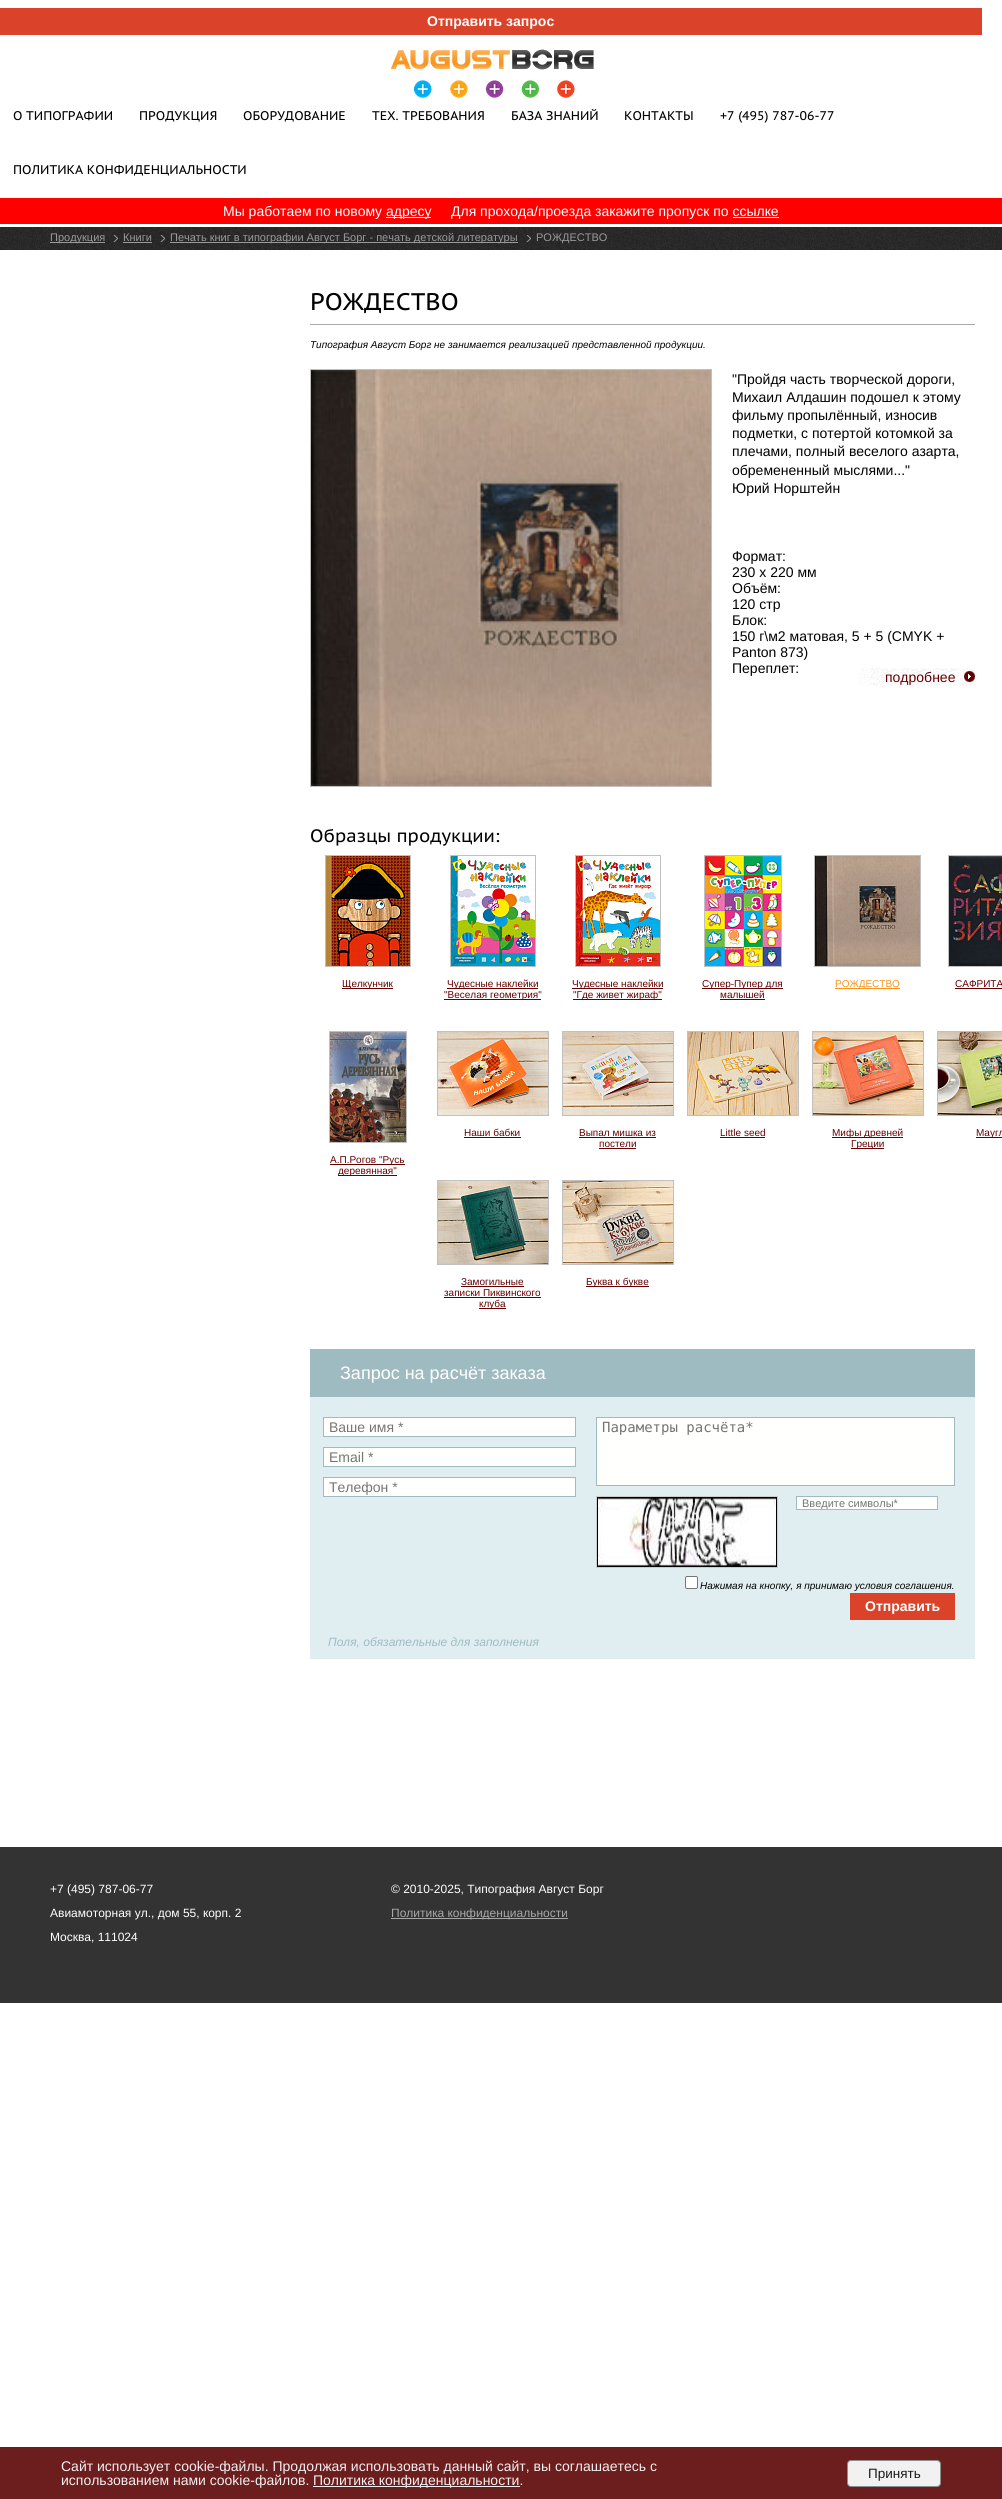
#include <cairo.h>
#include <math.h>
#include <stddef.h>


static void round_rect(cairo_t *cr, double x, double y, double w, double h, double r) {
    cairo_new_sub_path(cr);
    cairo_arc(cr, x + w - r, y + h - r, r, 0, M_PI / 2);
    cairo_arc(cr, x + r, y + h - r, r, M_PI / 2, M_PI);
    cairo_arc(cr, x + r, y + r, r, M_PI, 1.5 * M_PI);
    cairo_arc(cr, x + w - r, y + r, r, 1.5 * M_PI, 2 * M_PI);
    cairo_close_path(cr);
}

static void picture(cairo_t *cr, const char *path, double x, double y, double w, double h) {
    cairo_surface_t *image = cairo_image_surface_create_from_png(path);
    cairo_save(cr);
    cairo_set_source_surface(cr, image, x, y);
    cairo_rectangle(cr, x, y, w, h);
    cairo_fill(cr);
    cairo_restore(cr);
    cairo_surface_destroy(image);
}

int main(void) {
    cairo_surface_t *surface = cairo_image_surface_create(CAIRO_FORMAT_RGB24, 1002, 2499);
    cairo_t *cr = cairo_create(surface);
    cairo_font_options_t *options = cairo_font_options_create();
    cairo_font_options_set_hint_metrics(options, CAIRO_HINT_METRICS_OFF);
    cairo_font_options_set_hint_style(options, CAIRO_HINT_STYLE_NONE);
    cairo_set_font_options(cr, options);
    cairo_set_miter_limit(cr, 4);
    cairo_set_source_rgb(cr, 1, 1, 1);
    cairo_paint(cr);
    cairo_set_source_rgb(cr, 0.855, 0.263, 0.165);
    cairo_rectangle(cr, 0, 8, 982, 27);
    cairo_fill(cr);
    cairo_select_font_face(cr, "Liberation Sans", CAIRO_FONT_SLANT_NORMAL, CAIRO_FONT_WEIGHT_BOLD);
    cairo_set_font_size(cr, 14);
    cairo_set_source_rgb(cr, 1, 1, 1);
    cairo_move_to(cr, 427, 26);
    cairo_show_text(cr, "Отправить запрос");
    picture(cr, "img1.png", 391, 49, 203, 21);
    picture(cr, "img2.png", 414, 80, 161, 18);
    cairo_select_font_face(cr, "PT Sans Caption", CAIRO_FONT_SLANT_NORMAL, CAIRO_FONT_WEIGHT_NORMAL);
    cairo_set_font_size(cr, 12.6);
    cairo_set_source_rgb(cr, 0, 0, 0);
    cairo_move_to(cr, 13, 120);
    cairo_show_text(cr, "О ТИПОГРАФИИ");
    cairo_move_to(cr, 139, 120);
    cairo_show_text(cr, "ПРОДУКЦИЯ");
    cairo_move_to(cr, 243, 120);
    cairo_show_text(cr, "ОБОРУДОВАНИЕ");
    cairo_move_to(cr, 372, 120);
    cairo_show_text(cr, "ТЕХ. ТРЕБОВАНИЯ");
    cairo_move_to(cr, 511, 120);
    cairo_show_text(cr, "БАЗА ЗНАНИЙ");
    cairo_move_to(cr, 624, 120);
    cairo_show_text(cr, "КОНТАКТЫ");
    cairo_move_to(cr, 720, 120);
    cairo_show_text(cr, "+7 (495) 787-06-77");
    cairo_move_to(cr, 13, 174);
    cairo_show_text(cr, "ПОЛИТИКА КОНФИДЕНЦИАЛЬНОСТИ");
    cairo_set_source_rgb(cr, 1, 0, 0);
    cairo_rectangle(cr, 0, 198, 1002, 26);
    cairo_fill(cr);
    cairo_select_font_face(cr, "Liberation Sans", CAIRO_FONT_SLANT_NORMAL, CAIRO_FONT_WEIGHT_NORMAL);
    cairo_set_font_size(cr, 14);
    cairo_set_source_rgb(cr, 1, 1, 1);
    cairo_move_to(cr, 223, 216);
    cairo_show_text(cr, "Мы работаем по новому");
    cairo_rectangle(cr, 386, 217, 45, 1);
    cairo_fill(cr);
    cairo_move_to(cr, 386, 216);
    cairo_show_text(cr, "адресу");
    cairo_move_to(cr, 451, 216);
    cairo_show_text(cr, "Для прохода/проезда закажите пропуск по ссылке");
    cairo_rectangle(cr, 733, 217, 46, 1);
    cairo_fill(cr);
    picture(cr, "img3.png", 0, 227, 1002, 23);
    cairo_set_source_rgb(cr, 0.6, 0.6, 0.6);
    cairo_rectangle(cr, 50, 242, 55, 1);
    cairo_fill(cr);
    cairo_set_font_size(cr, 11);
    cairo_move_to(cr, 50, 241);
    cairo_show_text(cr, "Продукция");
    picture(cr, "img4.png", 113, 235, 5, 7);
    cairo_move_to(cr, 123, 241);
    cairo_show_text(cr, "Книги");
    cairo_rectangle(cr, 123, 242, 29, 1);
    cairo_fill(cr);
    picture(cr, "img5.png", 160, 235, 5, 7);
    cairo_rectangle(cr, 170, 242, 348, 1);
    cairo_fill(cr);
    cairo_move_to(cr, 170, 241);
    cairo_show_text(cr, "Печать книг в типографии Август Борг - печать детской литературы");
    picture(cr, "img6.png", 526, 235, 5, 7);
    cairo_move_to(cr, 536, 241);
    cairo_show_text(cr, "РОЖДЕСТВО");
    cairo_select_font_face(cr, "PT Sans Caption", CAIRO_FONT_SLANT_NORMAL, CAIRO_FONT_WEIGHT_NORMAL);
    cairo_set_font_size(cr, 24);
    cairo_set_source_rgb(cr, 0, 0, 0);
    cairo_move_to(cr, 310, 310);
    cairo_show_text(cr, "РОЖДЕСТВО");
    cairo_set_source_rgb(cr, 0.659, 0.659, 0.659);
    cairo_rectangle(cr, 310, 324, 665, 1);
    cairo_fill(cr);
    cairo_select_font_face(cr, "Liberation Sans", CAIRO_FONT_SLANT_ITALIC, CAIRO_FONT_WEIGHT_NORMAL);
    cairo_set_font_size(cr, 10);
    cairo_set_source_rgb(cr, 0, 0, 0);
    cairo_move_to(cr, 310, 348);
    cairo_show_text(cr, "Типография Август Борг не занимается реализацией представленной продукции.");
    cairo_set_source_rgb(cr, 0.753, 0.753, 0.753);
    cairo_rectangle(cr, 310, 369, 402, 1);
    cairo_fill(cr);
    cairo_rectangle(cr, 711, 369, 1, 418);
    cairo_fill(cr);
    cairo_rectangle(cr, 310, 786, 402, 1);
    cairo_fill(cr);
    cairo_rectangle(cr, 310, 369, 1, 418);
    cairo_fill(cr);
    picture(cr, "img7.png", 311, 370, 400, 416);
    cairo_select_font_face(cr, "Liberation Sans", CAIRO_FONT_SLANT_NORMAL, CAIRO_FONT_WEIGHT_NORMAL);
    cairo_set_font_size(cr, 14);
    cairo_set_source_rgb(cr, 0, 0, 0);
    cairo_move_to(cr, 732, 384);
    cairo_show_text(cr, "\"Пройдя часть творческой дороги,");
    cairo_move_to(cr, 732, 402);
    cairo_show_text(cr, "Михаил Алдашин подошел к этому");
    cairo_move_to(cr, 732, 420);
    cairo_show_text(cr, "фильму пропылённый, износив");
    cairo_move_to(cr, 732, 438);
    cairo_show_text(cr, "подметки, с потертой котомкой за");
    cairo_move_to(cr, 732, 456);
    cairo_show_text(cr, "плечами, полный веселого азарта,");
    cairo_move_to(cr, 732, 475);
    cairo_show_text(cr, "обремененный мыслями...\"");
    cairo_move_to(cr, 732, 493);
    cairo_show_text(cr, "Юрий Норштейн");
    cairo_move_to(cr, 732, 561);
    cairo_show_text(cr, "Формат:");
    cairo_move_to(cr, 732, 577);
    cairo_show_text(cr, "230 х 220 мм");
    cairo_move_to(cr, 732, 593);
    cairo_show_text(cr, "Объём:");
    cairo_move_to(cr, 732, 609);
    cairo_show_text(cr, "120 стр");
    cairo_move_to(cr, 732, 625);
    cairo_show_text(cr, "Блок:");
    cairo_move_to(cr, 732, 641);
    cairo_show_text(cr, "150 г\\м2 матовая, 5 + 5 (CMYK +");
    cairo_move_to(cr, 732, 657);
    cairo_show_text(cr, "Panton 873)");
    cairo_move_to(cr, 732, 673);
    cairo_show_text(cr, "Переплет:");
    picture(cr, "img8.png", 856, 668, 119, 18);
    cairo_set_source_rgb(cr, 0.396, 0, 0);
    cairo_move_to(cr, 885, 682);
    cairo_show_text(cr, "подробнее");
    picture(cr, "img9.png", 964, 671, 11, 11);
    cairo_select_font_face(cr, "PT Sans Caption", CAIRO_FONT_SLANT_NORMAL, CAIRO_FONT_WEIGHT_NORMAL);
    cairo_set_font_size(cr, 18);
    cairo_set_source_rgb(cr, 0, 0, 0);
    cairo_move_to(cr, 310, 842);
    cairo_show_text(cr, "Образцы продукции:");
    cairo_rectangle(cr, 325.5, 855.5, 85, 111);
    cairo_set_source_rgb(cr, 0.753, 0.753, 0.753);
    cairo_set_line_width(cr, 1);
    cairo_stroke(cr);
    picture(cr, "img10.png", 326, 856, 84, 110);
    cairo_set_source_rgb(cr, 0.396, 0, 0);
    cairo_rectangle(cr, 342, 988, 51, 1);
    cairo_fill(cr);
    cairo_select_font_face(cr, "Liberation Sans", CAIRO_FONT_SLANT_NORMAL, CAIRO_FONT_WEIGHT_NORMAL);
    cairo_set_font_size(cr, 10);
    cairo_move_to(cr, 342, 987);
    cairo_show_text(cr, "Щелкунчик");
    cairo_rectangle(cr, 450.5, 855.5, 85, 111);
    cairo_set_source_rgb(cr, 0.753, 0.753, 0.753);
    cairo_stroke(cr);
    picture(cr, "img11.png", 451, 856, 84, 110);
    cairo_set_source_rgb(cr, 0.396, 0, 0);
    cairo_rectangle(cr, 447, 988, 91, 1);
    cairo_fill(cr);
    cairo_move_to(cr, 447, 987);
    cairo_show_text(cr, "Чудесные наклейки");
    cairo_rectangle(cr, 444, 999, 97, 1);
    cairo_fill(cr);
    cairo_move_to(cr, 444, 998);
    cairo_show_text(cr, "\"Веселая геометрия\"");
    cairo_rectangle(cr, 575.5, 855.5, 85, 111);
    cairo_set_source_rgb(cr, 0.753, 0.753, 0.753);
    cairo_stroke(cr);
    picture(cr, "img12.png", 576, 856, 84, 110);
    cairo_set_source_rgb(cr, 0.396, 0, 0);
    cairo_rectangle(cr, 572, 988, 91, 1);
    cairo_fill(cr);
    cairo_move_to(cr, 572, 987);
    cairo_show_text(cr, "Чудесные наклейки");
    cairo_rectangle(cr, 573, 999, 89, 1);
    cairo_fill(cr);
    cairo_move_to(cr, 573, 998);
    cairo_show_text(cr, "\"Где живет жираф\"");
    cairo_rectangle(cr, 704.5, 855.5, 77, 111);
    cairo_set_source_rgb(cr, 0.753, 0.753, 0.753);
    cairo_stroke(cr);
    picture(cr, "img13.png", 705, 856, 76, 110);
    cairo_set_source_rgb(cr, 0.396, 0, 0);
    cairo_rectangle(cr, 702, 988, 81, 1);
    cairo_fill(cr);
    cairo_move_to(cr, 702, 987);
    cairo_show_text(cr, "Супер-Пупер для");
    cairo_move_to(cr, 720, 998);
    cairo_show_text(cr, "малышей");
    cairo_rectangle(cr, 720, 999, 45, 1);
    cairo_fill(cr);
    cairo_rectangle(cr, 814.5, 855.5, 106, 111);
    cairo_set_source_rgb(cr, 0.753, 0.753, 0.753);
    cairo_stroke(cr);
    picture(cr, "img14.png", 815, 856, 105, 110);
    cairo_set_source_rgb(cr, 0.973, 0.584, 0.118);
    cairo_rectangle(cr, 835, 988, 65, 1);
    cairo_fill(cr);
    cairo_move_to(cr, 835, 987);
    cairo_show_text(cr, "РОЖДЕСТВО");
    cairo_rectangle(cr, 948.5, 855.5, 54, 111);
    cairo_set_source_rgb(cr, 0.753, 0.753, 0.753);
    cairo_stroke(cr);
    picture(cr, "img15.png", 949, 856, 53, 110);
    cairo_set_source_rgb(cr, 0.396, 0, 0);
    cairo_move_to(cr, 955, 987);
    cairo_show_text(cr, "САФРИТА");
    cairo_rectangle(cr, 955, 988, 47, 1);
    cairo_fill(cr);
    cairo_rectangle(cr, 437.5, 1031.5, 111, 84);
    cairo_set_source_rgb(cr, 0.753, 0.753, 0.753);
    cairo_stroke(cr);
    picture(cr, "img16.png", 438, 1032, 110, 83);
    cairo_set_source_rgb(cr, 0.396, 0, 0);
    cairo_move_to(cr, 464, 1136);
    cairo_show_text(cr, "Наши бабки");
    cairo_rectangle(cr, 464, 1137, 57, 1);
    cairo_fill(cr);
    cairo_rectangle(cr, 562.5, 1031.5, 111, 84);
    cairo_set_source_rgb(cr, 0.753, 0.753, 0.753);
    cairo_stroke(cr);
    picture(cr, "img17.png", 563, 1032, 110, 83);
    cairo_set_source_rgb(cr, 0.396, 0, 0);
    cairo_move_to(cr, 579, 1136);
    cairo_show_text(cr, "Выпал мишка из");
    cairo_rectangle(cr, 579, 1137, 77, 1);
    cairo_fill(cr);
    cairo_move_to(cr, 599, 1147);
    cairo_show_text(cr, "постели");
    cairo_rectangle(cr, 599, 1148, 37, 1);
    cairo_fill(cr);
    cairo_rectangle(cr, 687.5, 1031.5, 111, 84);
    cairo_set_source_rgb(cr, 0.753, 0.753, 0.753);
    cairo_stroke(cr);
    picture(cr, "img18.png", 688, 1032, 110, 83);
    cairo_set_source_rgb(cr, 0.396, 0, 0);
    cairo_move_to(cr, 720, 1136);
    cairo_show_text(cr, "Little seed");
    cairo_rectangle(cr, 720, 1137, 45, 1);
    cairo_fill(cr);
    cairo_rectangle(cr, 812.5, 1031.5, 111, 84);
    cairo_set_source_rgb(cr, 0.753, 0.753, 0.753);
    cairo_stroke(cr);
    picture(cr, "img19.png", 813, 1032, 110, 83);
    cairo_set_source_rgb(cr, 0.396, 0, 0);
    cairo_rectangle(cr, 832, 1137, 71, 1);
    cairo_fill(cr);
    cairo_move_to(cr, 832, 1136);
    cairo_show_text(cr, "Мифы древней");
    cairo_rectangle(cr, 851, 1148, 33, 1);
    cairo_fill(cr);
    cairo_move_to(cr, 851, 1147);
    cairo_show_text(cr, "Греции");
    cairo_rectangle(cr, 937.5, 1031.5, 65, 84);
    cairo_set_source_rgb(cr, 0.753, 0.753, 0.753);
    cairo_stroke(cr);
    picture(cr, "img20.png", 938, 1032, 64, 83);
    cairo_set_source_rgb(cr, 0.396, 0, 0);
    cairo_rectangle(cr, 976, 1137, 26, 1);
    cairo_fill(cr);
    cairo_move_to(cr, 976, 1136);
    cairo_show_text(cr, "Маугл");
    cairo_rectangle(cr, 329.5, 1031.5, 77, 111);
    cairo_set_source_rgb(cr, 0.753, 0.753, 0.753);
    cairo_stroke(cr);
    picture(cr, "img21.png", 330, 1032, 76, 110);
    cairo_set_source_rgb(cr, 0.396, 0, 0);
    cairo_rectangle(cr, 330, 1164, 75, 1);
    cairo_fill(cr);
    cairo_move_to(cr, 330, 1163);
    cairo_show_text(cr, "А.П.Рогов \"Русь");
    cairo_rectangle(cr, 338, 1175, 59, 1);
    cairo_fill(cr);
    cairo_move_to(cr, 338, 1174);
    cairo_show_text(cr, "деревянная\"");
    cairo_rectangle(cr, 437.5, 1180.5, 111, 84);
    cairo_set_source_rgb(cr, 0.753, 0.753, 0.753);
    cairo_stroke(cr);
    picture(cr, "img22.png", 438, 1181, 110, 83);
    cairo_set_source_rgb(cr, 0.396, 0, 0);
    cairo_move_to(cr, 461, 1285);
    cairo_show_text(cr, "Замогильные");
    cairo_rectangle(cr, 461, 1286, 63, 1);
    cairo_fill(cr);
    cairo_move_to(cr, 444, 1296);
    cairo_show_text(cr, "записки Пиквинского");
    cairo_rectangle(cr, 444, 1297, 97, 1);
    cairo_fill(cr);
    cairo_rectangle(cr, 479, 1308, 27, 1);
    cairo_fill(cr);
    cairo_move_to(cr, 479, 1307);
    cairo_show_text(cr, "клуба");
    cairo_rectangle(cr, 562.5, 1180.5, 111, 84);
    cairo_set_source_rgb(cr, 0.753, 0.753, 0.753);
    cairo_stroke(cr);
    picture(cr, "img23.png", 563, 1181, 110, 83);
    cairo_set_source_rgb(cr, 0.396, 0, 0);
    cairo_rectangle(cr, 586, 1286, 63, 1);
    cairo_fill(cr);
    cairo_move_to(cr, 586, 1285);
    cairo_show_text(cr, "Буква к букве");
    cairo_set_source_rgb(cr, 0.62, 0.733, 0.761);
    cairo_rectangle(cr, 310, 1349, 665, 48);
    cairo_fill(cr);
    cairo_set_font_size(cr, 18);
    cairo_set_source_rgb(cr, 1, 1, 1);
    cairo_move_to(cr, 340, 1379);
    cairo_show_text(cr, "Запрос на расчёт заказа");
    cairo_set_source_rgb(cr, 0.882, 0.933, 0.945);
    cairo_rectangle(cr, 310, 1397, 665, 262);
    cairo_fill(cr);
    cairo_set_source_rgb(cr, 1, 1, 0.992);
    cairo_rectangle(cr, 323.5, 1417.5, 252, 19);
    cairo_fill_preserve(cr);
    cairo_set_source_rgb(cr, 0.62, 0.733, 0.761);
    cairo_stroke(cr);
    cairo_set_font_size(cr, 14);
    cairo_set_source_rgb(cr, 0.459, 0.459, 0.459);
    cairo_move_to(cr, 329, 1432);
    cairo_show_text(cr, "Ваше имя *");
    cairo_set_source_rgb(cr, 1, 1, 0.992);
    cairo_rectangle(cr, 323.5, 1447.5, 252, 19);
    cairo_fill_preserve(cr);
    cairo_set_source_rgb(cr, 0.62, 0.733, 0.761);
    cairo_stroke(cr);
    cairo_set_source_rgb(cr, 0.459, 0.459, 0.459);
    cairo_move_to(cr, 329, 1462);
    cairo_show_text(cr, "Email *");
    cairo_set_source_rgb(cr, 1, 1, 0.992);
    cairo_rectangle(cr, 323.5, 1477.5, 252, 19);
    cairo_fill_preserve(cr);
    cairo_set_source_rgb(cr, 0.62, 0.733, 0.761);
    cairo_stroke(cr);
    cairo_set_source_rgb(cr, 0.459, 0.459, 0.459);
    cairo_move_to(cr, 329, 1492);
    cairo_show_text(cr, "Телефон *");
    cairo_set_source_rgb(cr, 1, 1, 0.992);
    cairo_rectangle(cr, 596.5, 1417.5, 358, 68);
    cairo_fill_preserve(cr);
    cairo_set_source_rgb(cr, 0.62, 0.733, 0.761);
    cairo_stroke(cr);
    cairo_select_font_face(cr, "DejaVu Sans Mono", CAIRO_FONT_SLANT_NORMAL, CAIRO_FONT_WEIGHT_NORMAL);
    cairo_set_source_rgb(cr, 0.459, 0.459, 0.459);
    cairo_move_to(cr, 602, 1432);
    cairo_show_text(cr, "Параметры расчёта*");
    cairo_rectangle(cr, 596.5, 1496.5, 181, 71);
    cairo_set_source_rgb(cr, 0.8, 0.8, 0.8);
    cairo_stroke(cr);
    picture(cr, "img24.png", 597, 1497, 180, 70);
    cairo_set_source_rgb(cr, 1, 1, 0.992);
    cairo_rectangle(cr, 796.5, 1496.5, 141, 13);
    cairo_fill_preserve(cr);
    cairo_set_source_rgb(cr, 0.62, 0.733, 0.761);
    cairo_stroke(cr);
    cairo_save(cr);
    cairo_rectangle(cr, 802, 1497, 130, 12);
    cairo_clip(cr);
    cairo_select_font_face(cr, "Liberation Sans", CAIRO_FONT_SLANT_NORMAL, CAIRO_FONT_WEIGHT_NORMAL);
    cairo_set_font_size(cr, 11);
    cairo_set_source_rgb(cr, 0.459, 0.459, 0.459);
    cairo_move_to(cr, 802, 1507);
    cairo_show_text(cr, "Введите символы*");
    cairo_restore(cr);
    cairo_set_source_rgb(cr, 1, 1, 1);
    round_rect(cr, 685.5, 1576.5, 12, 12, 1.5);
    cairo_fill_preserve(cr);
    cairo_set_source_rgb(cr, 0.463, 0.463, 0.463);
    cairo_stroke(cr);
    cairo_select_font_face(cr, "Liberation Sans", CAIRO_FONT_SLANT_ITALIC, CAIRO_FONT_WEIGHT_NORMAL);
    cairo_set_font_size(cr, 10);
    cairo_set_source_rgb(cr, 0, 0, 0);
    cairo_move_to(cr, 700, 1589);
    cairo_show_text(cr, "Нажимая на кнопку, я принимаю условия соглашения.");
    cairo_set_source_rgb(cr, 0.855, 0.263, 0.165);
    cairo_rectangle(cr, 850, 1593, 105, 27);
    cairo_fill(cr);
    cairo_select_font_face(cr, "Liberation Sans", CAIRO_FONT_SLANT_NORMAL, CAIRO_FONT_WEIGHT_BOLD);
    cairo_set_font_size(cr, 14);
    cairo_set_source_rgb(cr, 1, 1, 1);
    cairo_move_to(cr, 865, 1611);
    cairo_show_text(cr, "Отправить");
    cairo_select_font_face(cr, "Liberation Sans", CAIRO_FONT_SLANT_ITALIC, CAIRO_FONT_WEIGHT_NORMAL);
    cairo_set_font_size(cr, 12);
    cairo_set_source_rgb(cr, 0.62, 0.733, 0.761);
    cairo_move_to(cr, 328, 1646);
    cairo_show_text(cr, "Поля, обязательные для заполнения");
    cairo_set_source_rgb(cr, 0.2, 0.2, 0.2);
    cairo_rectangle(cr, 0, 1847, 1002, 156);
    cairo_fill(cr);
    cairo_select_font_face(cr, "Liberation Sans", CAIRO_FONT_SLANT_NORMAL, CAIRO_FONT_WEIGHT_NORMAL);
    cairo_set_source_rgb(cr, 1, 1, 1);
    cairo_move_to(cr, 50, 1893);
    cairo_show_text(cr, "+7 (495) 787-06-77");
    cairo_move_to(cr, 50, 1917);
    cairo_show_text(cr, "Авиамоторная ул., дом 55, корп. 2");
    cairo_move_to(cr, 50, 1941);
    cairo_show_text(cr, "Москва, 111024");
    cairo_move_to(cr, 391, 1893);
    cairo_show_text(cr, "© 2010-2025, Типография Август Борг");
    cairo_set_source_rgb(cr, 0.659, 0.659, 0.659);
    cairo_rectangle(cr, 391, 1918, 177, 1);
    cairo_fill(cr);
    cairo_move_to(cr, 391, 1917);
    cairo_show_text(cr, "Политика конфиденциальности");
    cairo_set_source_rgb(cr, 0.424, 0.118, 0.118);
    cairo_rectangle(cr, 0, 2447, 1002, 52);
    cairo_fill(cr);
    cairo_set_font_size(cr, 14);
    cairo_set_source_rgb(cr, 0.941, 0.941, 0.941);
    cairo_move_to(cr, 61, 2471);
    cairo_show_text(cr, "Сайт использует cookie-файлы. Продолжая использовать данный сайт, вы соглашаетесь с");
    cairo_move_to(cr, 61, 2485);
    cairo_show_text(cr, "использованием нами cookie-файлов.");
    cairo_rectangle(cr, 313, 2486, 207, 1);
    cairo_fill(cr);
    cairo_move_to(cr, 313, 2485);
    cairo_show_text(cr, "Политика конфиденциальности.");
    cairo_set_source_rgb(cr, 0.945, 0.945, 0.945);
    round_rect(cr, 847.5, 2460.5, 93, 26, 3.5);
    cairo_fill_preserve(cr);
    cairo_set_source_rgb(cr, 0.553, 0.553, 0.553);
    cairo_stroke(cr);
    cairo_set_font_size(cr, 13.5);
    cairo_set_source_rgb(cr, 0.102, 0.102, 0.102);
    cairo_move_to(cr, 868, 2478);
    cairo_show_text(cr, "Принять");
    cairo_surface_write_to_png(surface, "page.png");
    cairo_font_options_destroy(options);
    cairo_destroy(cr);
    cairo_surface_destroy(surface);
    return 0;
}
